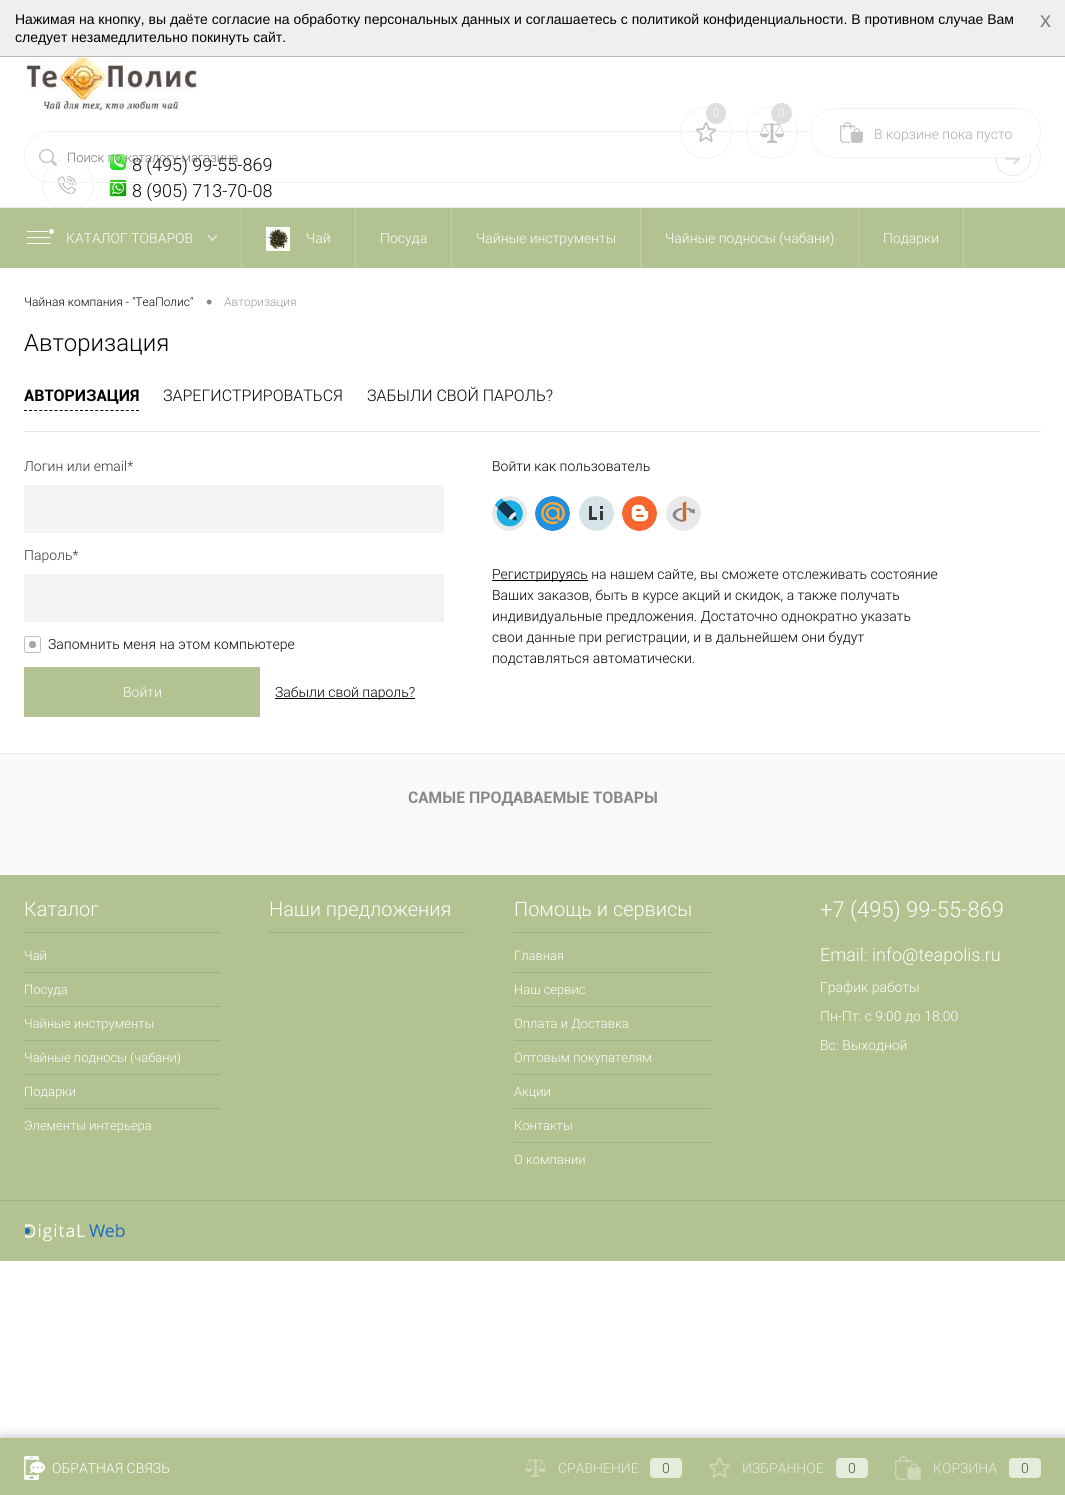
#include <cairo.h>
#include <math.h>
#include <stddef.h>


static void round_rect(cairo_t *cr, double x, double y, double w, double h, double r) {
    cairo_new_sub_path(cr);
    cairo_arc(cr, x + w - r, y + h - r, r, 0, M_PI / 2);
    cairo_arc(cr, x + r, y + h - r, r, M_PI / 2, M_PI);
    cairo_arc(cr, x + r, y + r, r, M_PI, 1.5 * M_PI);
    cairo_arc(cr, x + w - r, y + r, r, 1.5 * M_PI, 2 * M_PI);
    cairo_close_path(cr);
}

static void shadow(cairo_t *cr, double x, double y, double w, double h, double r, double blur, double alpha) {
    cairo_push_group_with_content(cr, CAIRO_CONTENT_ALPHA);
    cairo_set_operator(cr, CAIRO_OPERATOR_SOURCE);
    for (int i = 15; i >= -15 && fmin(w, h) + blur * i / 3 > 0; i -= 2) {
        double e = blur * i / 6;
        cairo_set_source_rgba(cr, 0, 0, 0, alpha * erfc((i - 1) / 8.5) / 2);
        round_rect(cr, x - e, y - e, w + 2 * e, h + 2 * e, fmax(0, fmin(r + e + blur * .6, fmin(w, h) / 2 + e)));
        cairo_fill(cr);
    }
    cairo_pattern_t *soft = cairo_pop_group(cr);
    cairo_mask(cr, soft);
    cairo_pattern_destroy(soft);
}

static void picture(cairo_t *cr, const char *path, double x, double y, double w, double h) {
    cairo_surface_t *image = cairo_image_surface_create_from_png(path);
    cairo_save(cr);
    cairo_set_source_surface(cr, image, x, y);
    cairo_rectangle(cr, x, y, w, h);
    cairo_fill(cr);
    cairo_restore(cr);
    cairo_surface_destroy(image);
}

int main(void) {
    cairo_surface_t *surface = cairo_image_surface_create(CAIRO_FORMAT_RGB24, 1065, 1495);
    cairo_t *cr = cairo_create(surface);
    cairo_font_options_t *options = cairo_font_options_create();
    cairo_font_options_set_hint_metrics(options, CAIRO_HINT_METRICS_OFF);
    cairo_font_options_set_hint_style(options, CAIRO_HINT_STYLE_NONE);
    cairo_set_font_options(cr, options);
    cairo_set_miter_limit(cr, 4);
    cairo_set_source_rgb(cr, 1, 1, 1);
    cairo_paint(cr);
    cairo_set_source_rgb(cr, 0.937, 0.937, 0.937);
    cairo_rectangle(cr, 0, 0, 1065, 56);
    cairo_fill(cr);
    cairo_set_source_rgb(cr, 0.725, 0.725, 0.725);
    cairo_rectangle(cr, 0, 56, 1065, 1);
    cairo_fill(cr);
    cairo_select_font_face(cr, "Liberation Sans", CAIRO_FONT_SLANT_NORMAL, CAIRO_FONT_WEIGHT_NORMAL);
    cairo_set_font_size(cr, 14);
    cairo_set_source_rgb(cr, 0, 0, 0);
    cairo_move_to(cr, 15, 24);
    cairo_show_text(cr, "Нажимая на кнопку, вы даёте согласие на обработку персональных данных и соглашаетесь с политикой конфиденциальности. В противном случае Вам");
    cairo_move_to(cr, 15, 42);
    cairo_show_text(cr, "следует незамедлительно покинуть сайт.");
    cairo_set_font_size(cr, 22);
    cairo_set_source_rgb(cr, 0.525, 0.498, 0.498);
    cairo_move_to(cr, 1040, 27);
    cairo_show_text(cr, "x");
    cairo_set_source_rgb(cr, 0.918, 0.918, 0.918);
    cairo_rectangle(cr, 0, 207, 1065, 1);
    cairo_fill(cr);
    picture(cr, "img7.png", 58, 176, 18, 18);
    cairo_arc(cr, 68, 185, 25.5, 0, 2 * M_PI);
    cairo_set_source_rgb(cr, 0.953, 0.953, 0.953);
    cairo_set_line_width(cr, 1);
    cairo_stroke(cr);
    picture(cr, "img8.png", 110, 154, 16, 16);
    picture(cr, "img9.png", 109, 179, 18, 18);
    cairo_select_font_face(cr, "Roboto Light", CAIRO_FONT_SLANT_NORMAL, CAIRO_FONT_WEIGHT_NORMAL);
    cairo_set_font_size(cr, 18);
    cairo_set_source_rgb(cr, 0, 0, 0);
    cairo_move_to(cr, 132, 197);
    cairo_show_text(cr, "8 (905) 713-70-08");
    round_rect(cr, 24.5, 131.5, 1016, 51, 25.5);
    cairo_set_source_rgb(cr, 0.953, 0.953, 0.953);
    cairo_stroke(cr);
    picture(cr, "img1.png", 696, 122, 20, 20);
    cairo_arc(cr, 706, 133, 25.5, 0, 2 * M_PI);
    cairo_stroke(cr);
    cairo_set_source_rgb(cr, 0.871, 0.871, 0.871);
    round_rect(cr, 706, 103, 20, 21, 10);
    cairo_fill(cr);
    cairo_set_font_size(cr, 12);
    cairo_set_source_rgb(cr, 1, 1, 1);
    cairo_move_to(cr, 713, 117);
    cairo_show_text(cr, "0");
    picture(cr, "img2.png", 760, 123, 24, 20);
    cairo_arc(cr, 772, 133, 25.5, 0, 2 * M_PI);
    cairo_set_source_rgb(cr, 0.953, 0.953, 0.953);
    cairo_stroke(cr);
    cairo_set_source_rgb(cr, 0.871, 0.871, 0.871);
    cairo_arc(cr, 781.5, 113.5, 10.5, 0, 2 * M_PI);
    cairo_fill(cr);
    cairo_set_source_rgb(cr, 1, 1, 1);
    cairo_move_to(cr, 778, 117);
    cairo_show_text(cr, "0");
    picture(cr, "img5.png", 995, 153, 36, 23);
    round_rect(cr, 811.5, 108.5, 229, 49, 23.5);
    cairo_fill_preserve(cr);
    cairo_set_source_rgb(cr, 0.953, 0.953, 0.953);
    cairo_stroke(cr);
    picture(cr, "img3.png", 840, 122, 23, 21);
    cairo_set_font_size(cr, 14);
    cairo_set_source_rgb(cr, 0.667, 0.667, 0.667);
    cairo_move_to(cr, 874, 139);
    cairo_show_text(cr, "В корзине пока пусто");
    picture(cr, "img4.png", 39, 149, 18, 17);
    cairo_set_font_size(cr, 18);
    cairo_set_source_rgb(cr, 0, 0, 0);
    cairo_move_to(cr, 132, 171);
    cairo_show_text(cr, "8 (495) 99-55-869");
    cairo_set_font_size(cr, 13);
    cairo_set_source_rgb(cr, 0.459, 0.459, 0.459);
    cairo_move_to(cr, 67, 162);
    cairo_show_text(cr, "Поиск по каталогу магазина");
    picture(cr, "img6.png", 26, 57, 171, 54);
    cairo_set_source_rgb(cr, 0.698, 0.761, 0.569);
    cairo_rectangle(cr, 0, 208, 1065, 60);
    cairo_fill(cr);
    picture(cr, "img10.png", 27, 229, 27, 15);
    cairo_set_font_size(cr, 14);
    cairo_set_source_rgb(cr, 1, 1, 1);
    cairo_move_to(cr, 66, 243);
    cairo_show_text(cr, "КАТАЛОГ ТОВАРОВ");
    picture(cr, "img11.png", 208, 235, 9, 6);
    cairo_set_source_rgb(cr, 0.757, 0.808, 0.655);
    cairo_rectangle(cr, 355, 208, 1, 60);
    cairo_fill(cr);
    cairo_rectangle(cr, 241, 208, 1, 60);
    cairo_fill(cr);
    picture(cr, "img12.png", 266, 227, 24, 24);
    cairo_set_source_rgb(cr, 1, 1, 1);
    cairo_move_to(cr, 306, 243);
    cairo_show_text(cr, "Чай");
    cairo_set_source_rgb(cr, 0.757, 0.808, 0.655);
    cairo_rectangle(cr, 451, 208, 1, 60);
    cairo_fill(cr);
    cairo_set_source_rgb(cr, 1, 1, 1);
    cairo_move_to(cr, 380, 243);
    cairo_show_text(cr, "Посуда");
    cairo_set_source_rgb(cr, 0.757, 0.808, 0.655);
    cairo_rectangle(cr, 640, 208, 1, 60);
    cairo_fill(cr);
    cairo_set_source_rgb(cr, 1, 1, 1);
    cairo_move_to(cr, 476, 243);
    cairo_show_text(cr, "Чайные инструменты");
    cairo_set_source_rgb(cr, 0.757, 0.808, 0.655);
    cairo_rectangle(cr, 858, 208, 1, 60);
    cairo_fill(cr);
    cairo_set_source_rgb(cr, 1, 1, 1);
    cairo_move_to(cr, 665, 243);
    cairo_show_text(cr, "Чайные подносы (чабани)");
    cairo_set_source_rgb(cr, 0.757, 0.808, 0.655);
    cairo_rectangle(cr, 963, 208, 1, 60);
    cairo_fill(cr);
    cairo_set_source_rgb(cr, 1, 1, 1);
    cairo_move_to(cr, 883, 243);
    cairo_show_text(cr, "Подарки");
    cairo_set_font_size(cr, 12);
    cairo_set_source_rgb(cr, 0, 0, 0);
    cairo_move_to(cr, 24, 306);
    cairo_show_text(cr, "Чайная компания - \"ТеаПолис\"");
    cairo_select_font_face(cr, "Liberation Sans", CAIRO_FONT_SLANT_NORMAL, CAIRO_FONT_WEIGHT_NORMAL);
    cairo_set_font_size(cr, 18);
    cairo_set_source_rgb(cr, 0.533, 0.533, 0.533);
    cairo_move_to(cr, 206, 308);
    cairo_show_text(cr, "•");
    cairo_select_font_face(cr, "Roboto Light", CAIRO_FONT_SLANT_NORMAL, CAIRO_FONT_WEIGHT_NORMAL);
    cairo_set_font_size(cr, 12);
    cairo_set_source_rgb(cr, 0.6, 0.6, 0.6);
    cairo_move_to(cr, 224, 306);
    cairo_show_text(cr, "Авторизация");
    cairo_set_font_size(cr, 24);
    cairo_set_source_rgb(cr, 0, 0, 0);
    cairo_move_to(cr, 24, 351);
    cairo_show_text(cr, "Авторизация");
    cairo_set_source_rgb(cr, 0.906, 0.91, 0.918);
    cairo_rectangle(cr, 24, 431, 1017, 1);
    cairo_fill(cr);
    cairo_select_font_face(cr, "Roboto", CAIRO_FONT_SLANT_NORMAL, CAIRO_FONT_WEIGHT_BOLD);
    cairo_set_font_size(cr, 16);
    cairo_set_source_rgb(cr, 0, 0, 0);
    cairo_move_to(cr, 24, 401);
    cairo_show_text(cr, "АВТОРИЗАЦИЯ");
    cairo_new_path(cr);
    cairo_move_to(cr, 24, 410.5);
    cairo_line_to(cr, 139, 410.5);
    cairo_set_dash(cr, (double[]){3, 2.09}, 2, 0);
    cairo_stroke(cr);
    cairo_select_font_face(cr, "Roboto Light", CAIRO_FONT_SLANT_NORMAL, CAIRO_FONT_WEIGHT_NORMAL);
    cairo_move_to(cr, 163, 401);
    cairo_show_text(cr, "ЗАРЕГИСТРИРОВАТЬСЯ");
    cairo_move_to(cr, 367, 401);
    cairo_show_text(cr, "ЗАБЫЛИ СВОЙ ПАРОЛЬ?");
    cairo_set_font_size(cr, 14);
    cairo_set_source_rgb(cr, 0.2, 0.2, 0.2);
    cairo_move_to(cr, 24, 471);
    cairo_show_text(cr, "Логин или email*");
    cairo_set_source_rgb(cr, 0.953, 0.953, 0.953);
    cairo_rectangle(cr, 24, 485, 420, 48);
    cairo_fill(cr);
    cairo_set_source_rgb(cr, 0.2, 0.2, 0.2);
    cairo_move_to(cr, 24, 560);
    cairo_show_text(cr, "Пароль*");
    cairo_set_source_rgb(cr, 0.953, 0.953, 0.953);
    cairo_rectangle(cr, 24, 574, 420, 48);
    cairo_fill(cr);
    picture(cr, "img13.png", 24, 636, 17, 17);
    cairo_set_source_rgb(cr, 0, 0, 0);
    cairo_move_to(cr, 48, 649);
    cairo_show_text(cr, "Запомнить меня на этом компьютере");
    cairo_set_source_rgb(cr, 0.698, 0.761, 0.569);
    cairo_rectangle(cr, 24, 667, 236, 50);
    cairo_fill(cr);
    cairo_set_source_rgb(cr, 1, 1, 1);
    cairo_move_to(cr, 123, 697);
    cairo_show_text(cr, "Войти");
    cairo_set_source_rgb(cr, 0, 0, 0);
    cairo_rectangle(cr, 275, 698, 140, 1);
    cairo_fill(cr);
    cairo_move_to(cr, 275, 697);
    cairo_show_text(cr, "Забыли свой пароль?");
    cairo_move_to(cr, 492, 471);
    cairo_show_text(cr, "Войти как пользователь");
    picture(cr, "img14.png", 492, 496, 35, 35);
    picture(cr, "img15.png", 535, 496, 35, 35);
    picture(cr, "img16.png", 579, 496, 35, 35);
    picture(cr, "img17.png", 622, 496, 35, 35);
    picture(cr, "img18.png", 666, 496, 35, 35);
    cairo_rectangle(cr, 492, 580, 96, 1);
    cairo_fill(cr);
    cairo_move_to(cr, 492, 579);
    cairo_show_text(cr, "Регистрируясь на нашем сайте, вы сможете отслеживать состояние");
    cairo_move_to(cr, 492, 600);
    cairo_show_text(cr, "Ваших заказов, быть в курсе акций и скидок, а также получать");
    cairo_move_to(cr, 492, 621);
    cairo_show_text(cr, "индивидуальные предложения. Достаточно однократно указать");
    cairo_move_to(cr, 492, 642);
    cairo_show_text(cr, "свои данные при регистрации, и в дальнейшем они будут");
    cairo_move_to(cr, 492, 663);
    cairo_show_text(cr, "подставляться автоматически.");
    cairo_set_source_rgb(cr, 0.976, 0.976, 0.976);
    cairo_rectangle(cr, 0, 754, 1065, 121);
    cairo_fill(cr);
    cairo_set_source_rgb(cr, 0.906, 0.91, 0.918);
    cairo_rectangle(cr, 0, 753, 1065, 1);
    cairo_fill(cr);
    cairo_select_font_face(cr, "Roboto", CAIRO_FONT_SLANT_NORMAL, CAIRO_FONT_WEIGHT_BOLD);
    cairo_set_font_size(cr, 16);
    cairo_set_source_rgb(cr, 0.533, 0.533, 0.533);
    cairo_move_to(cr, 408, 803);
    cairo_show_text(cr, "САМЫЕ ПРОДАВАЕМЫЕ ТОВАРЫ");
    cairo_set_source_rgb(cr, 0.698, 0.761, 0.569);
    cairo_rectangle(cr, 0, 875, 1065, 325);
    cairo_fill(cr);
    cairo_set_source_rgb(cr, 0.627, 0.686, 0.514);
    cairo_rectangle(cr, 24, 932, 197, 1);
    cairo_fill(cr);
    cairo_select_font_face(cr, "Roboto Light", CAIRO_FONT_SLANT_NORMAL, CAIRO_FONT_WEIGHT_NORMAL);
    cairo_set_font_size(cr, 20);
    cairo_set_source_rgb(cr, 1, 1, 1);
    cairo_move_to(cr, 24, 916);
    cairo_show_text(cr, "Каталог");
    cairo_set_font_size(cr, 13);
    cairo_move_to(cr, 24, 960);
    cairo_show_text(cr, "Чай");
    cairo_set_source_rgb(cr, 0.627, 0.686, 0.514);
    cairo_rectangle(cr, 24, 972, 197, 1);
    cairo_fill(cr);
    cairo_set_source_rgb(cr, 1, 1, 1);
    cairo_move_to(cr, 24, 994);
    cairo_show_text(cr, "Посуда");
    cairo_set_source_rgb(cr, 0.627, 0.686, 0.514);
    cairo_rectangle(cr, 24, 1006, 197, 1);
    cairo_fill(cr);
    cairo_set_source_rgb(cr, 1, 1, 1);
    cairo_move_to(cr, 24, 1028);
    cairo_show_text(cr, "Чайные инструменты");
    cairo_set_source_rgb(cr, 0.627, 0.686, 0.514);
    cairo_rectangle(cr, 24, 1040, 197, 1);
    cairo_fill(cr);
    cairo_set_source_rgb(cr, 1, 1, 1);
    cairo_move_to(cr, 24, 1062);
    cairo_show_text(cr, "Чайные подносы (чабани)");
    cairo_set_source_rgb(cr, 0.627, 0.686, 0.514);
    cairo_rectangle(cr, 24, 1074, 197, 1);
    cairo_fill(cr);
    cairo_set_source_rgb(cr, 1, 1, 1);
    cairo_move_to(cr, 24, 1096);
    cairo_show_text(cr, "Подарки");
    cairo_set_source_rgb(cr, 0.627, 0.686, 0.514);
    cairo_rectangle(cr, 24, 1108, 197, 1);
    cairo_fill(cr);
    cairo_set_source_rgb(cr, 1, 1, 1);
    cairo_move_to(cr, 24, 1130);
    cairo_show_text(cr, "Элементы интерьера");
    cairo_set_source_rgb(cr, 0.627, 0.686, 0.514);
    cairo_rectangle(cr, 269, 932, 197, 1);
    cairo_fill(cr);
    cairo_set_font_size(cr, 20);
    cairo_set_source_rgb(cr, 1, 1, 1);
    cairo_move_to(cr, 269, 916);
    cairo_show_text(cr, "Наши предложения");
    cairo_set_source_rgb(cr, 0.627, 0.686, 0.514);
    cairo_rectangle(cr, 514, 932, 197, 1);
    cairo_fill(cr);
    cairo_set_source_rgb(cr, 1, 1, 1);
    cairo_move_to(cr, 514, 916);
    cairo_show_text(cr, "Помощь и сервисы");
    cairo_set_font_size(cr, 13);
    cairo_move_to(cr, 514, 960);
    cairo_show_text(cr, "Главная");
    cairo_set_source_rgb(cr, 0.627, 0.686, 0.514);
    cairo_rectangle(cr, 514, 972, 197, 1);
    cairo_fill(cr);
    cairo_set_source_rgb(cr, 1, 1, 1);
    cairo_move_to(cr, 514, 994);
    cairo_show_text(cr, "Наш сервис");
    cairo_set_source_rgb(cr, 0.627, 0.686, 0.514);
    cairo_rectangle(cr, 514, 1006, 197, 1);
    cairo_fill(cr);
    cairo_set_source_rgb(cr, 1, 1, 1);
    cairo_move_to(cr, 514, 1028);
    cairo_show_text(cr, "Оплата и Доставка");
    cairo_set_source_rgb(cr, 0.627, 0.686, 0.514);
    cairo_rectangle(cr, 514, 1040, 197, 1);
    cairo_fill(cr);
    cairo_set_source_rgb(cr, 1, 1, 1);
    cairo_move_to(cr, 514, 1062);
    cairo_show_text(cr, "Оптовым покупателям");
    cairo_set_source_rgb(cr, 0.627, 0.686, 0.514);
    cairo_rectangle(cr, 514, 1074, 197, 1);
    cairo_fill(cr);
    cairo_set_source_rgb(cr, 1, 1, 1);
    cairo_move_to(cr, 514, 1096);
    cairo_show_text(cr, "Акции");
    cairo_set_source_rgb(cr, 0.627, 0.686, 0.514);
    cairo_rectangle(cr, 514, 1108, 197, 1);
    cairo_fill(cr);
    cairo_set_source_rgb(cr, 1, 1, 1);
    cairo_move_to(cr, 514, 1130);
    cairo_show_text(cr, "Контакты");
    cairo_set_source_rgb(cr, 0.627, 0.686, 0.514);
    cairo_rectangle(cr, 514, 1142, 197, 1);
    cairo_fill(cr);
    cairo_set_source_rgb(cr, 1, 1, 1);
    cairo_move_to(cr, 514, 1164);
    cairo_show_text(cr, "О компании");
    cairo_set_font_size(cr, 22);
    cairo_move_to(cr, 820, 917);
    cairo_show_text(cr, "+7 (495) 99-55-869");
    cairo_set_font_size(cr, 18);
    cairo_move_to(cr, 820, 961);
    cairo_show_text(cr, "Email: info@teapolis.ru");
    cairo_set_font_size(cr, 14);
    cairo_move_to(cr, 820, 992);
    cairo_show_text(cr, "График работы");
    cairo_move_to(cr, 820, 1021);
    cairo_show_text(cr, "Пн-Пт: с 9:00 до 18:00");
    cairo_move_to(cr, 820, 1050);
    cairo_show_text(cr, "Вс: Выходной");
    cairo_set_source_rgb(cr, 0.698, 0.761, 0.569);
    cairo_rectangle(cr, 0, 1201, 1065, 60);
    cairo_fill(cr);
    cairo_set_source_rgb(cr, 0.627, 0.686, 0.514);
    cairo_rectangle(cr, 0, 1200, 1065, 1);
    cairo_fill(cr);
    picture(cr, "img19.png", 25, 1224, 100, 18);
    cairo_set_source_rgb(cr, 0, 0, 0);
    shadow(cr, 1, 1439, 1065, 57, 0, 6, 0.35);
    cairo_set_source_rgb(cr, 0.698, 0.761, 0.569);
    cairo_rectangle(cr, 0, 1438, 1065, 57);
    cairo_fill(cr);
    picture(cr, "img20.png", 24, 1456, 21, 24);
    cairo_set_source_rgb(cr, 1, 1, 1);
    cairo_move_to(cr, 52, 1473);
    cairo_show_text(cr, "ОБРАТНАЯ СВЯЗЬ");
    picture(cr, "img21.png", 525, 1459, 21, 18);
    cairo_set_source_rgb(cr, 0.91, 0.929, 0.871);
    cairo_move_to(cr, 558, 1473);
    cairo_show_text(cr, "СРАВНЕНИЕ");
    cairo_set_source_rgb(cr, 0.902, 0.922, 0.863);
    round_rect(cr, 650, 1458, 32, 20, 4);
    cairo_fill(cr);
    cairo_set_source_rgb(cr, 0.302, 0.322, 0.263);
    cairo_move_to(cr, 662, 1473);
    cairo_show_text(cr, "0");
    picture(cr, "img22.png", 709, 1457, 21, 21);
    cairo_set_source_rgb(cr, 0.91, 0.929, 0.871);
    cairo_move_to(cr, 742, 1473);
    cairo_show_text(cr, "ИЗБРАННОЕ");
    cairo_set_source_rgb(cr, 0.902, 0.922, 0.863);
    round_rect(cr, 836, 1458, 32, 20, 4);
    cairo_fill(cr);
    cairo_set_source_rgb(cr, 0.302, 0.322, 0.263);
    cairo_move_to(cr, 848, 1473);
    cairo_show_text(cr, "0");
    picture(cr, "img23.png", 895, 1456, 26, 24);
    cairo_set_source_rgb(cr, 0.91, 0.929, 0.871);
    cairo_move_to(cr, 933, 1473);
    cairo_show_text(cr, "КОРЗИНА");
    cairo_set_source_rgb(cr, 0.902, 0.922, 0.863);
    round_rect(cr, 1009, 1458, 32, 20, 4);
    cairo_fill(cr);
    cairo_set_source_rgb(cr, 0.302, 0.322, 0.263);
    cairo_move_to(cr, 1021, 1473);
    cairo_show_text(cr, "0");
    cairo_surface_write_to_png(surface, "page.png");
    cairo_font_options_destroy(options);
    cairo_destroy(cr);
    cairo_surface_destroy(surface);
    return 0;
}
